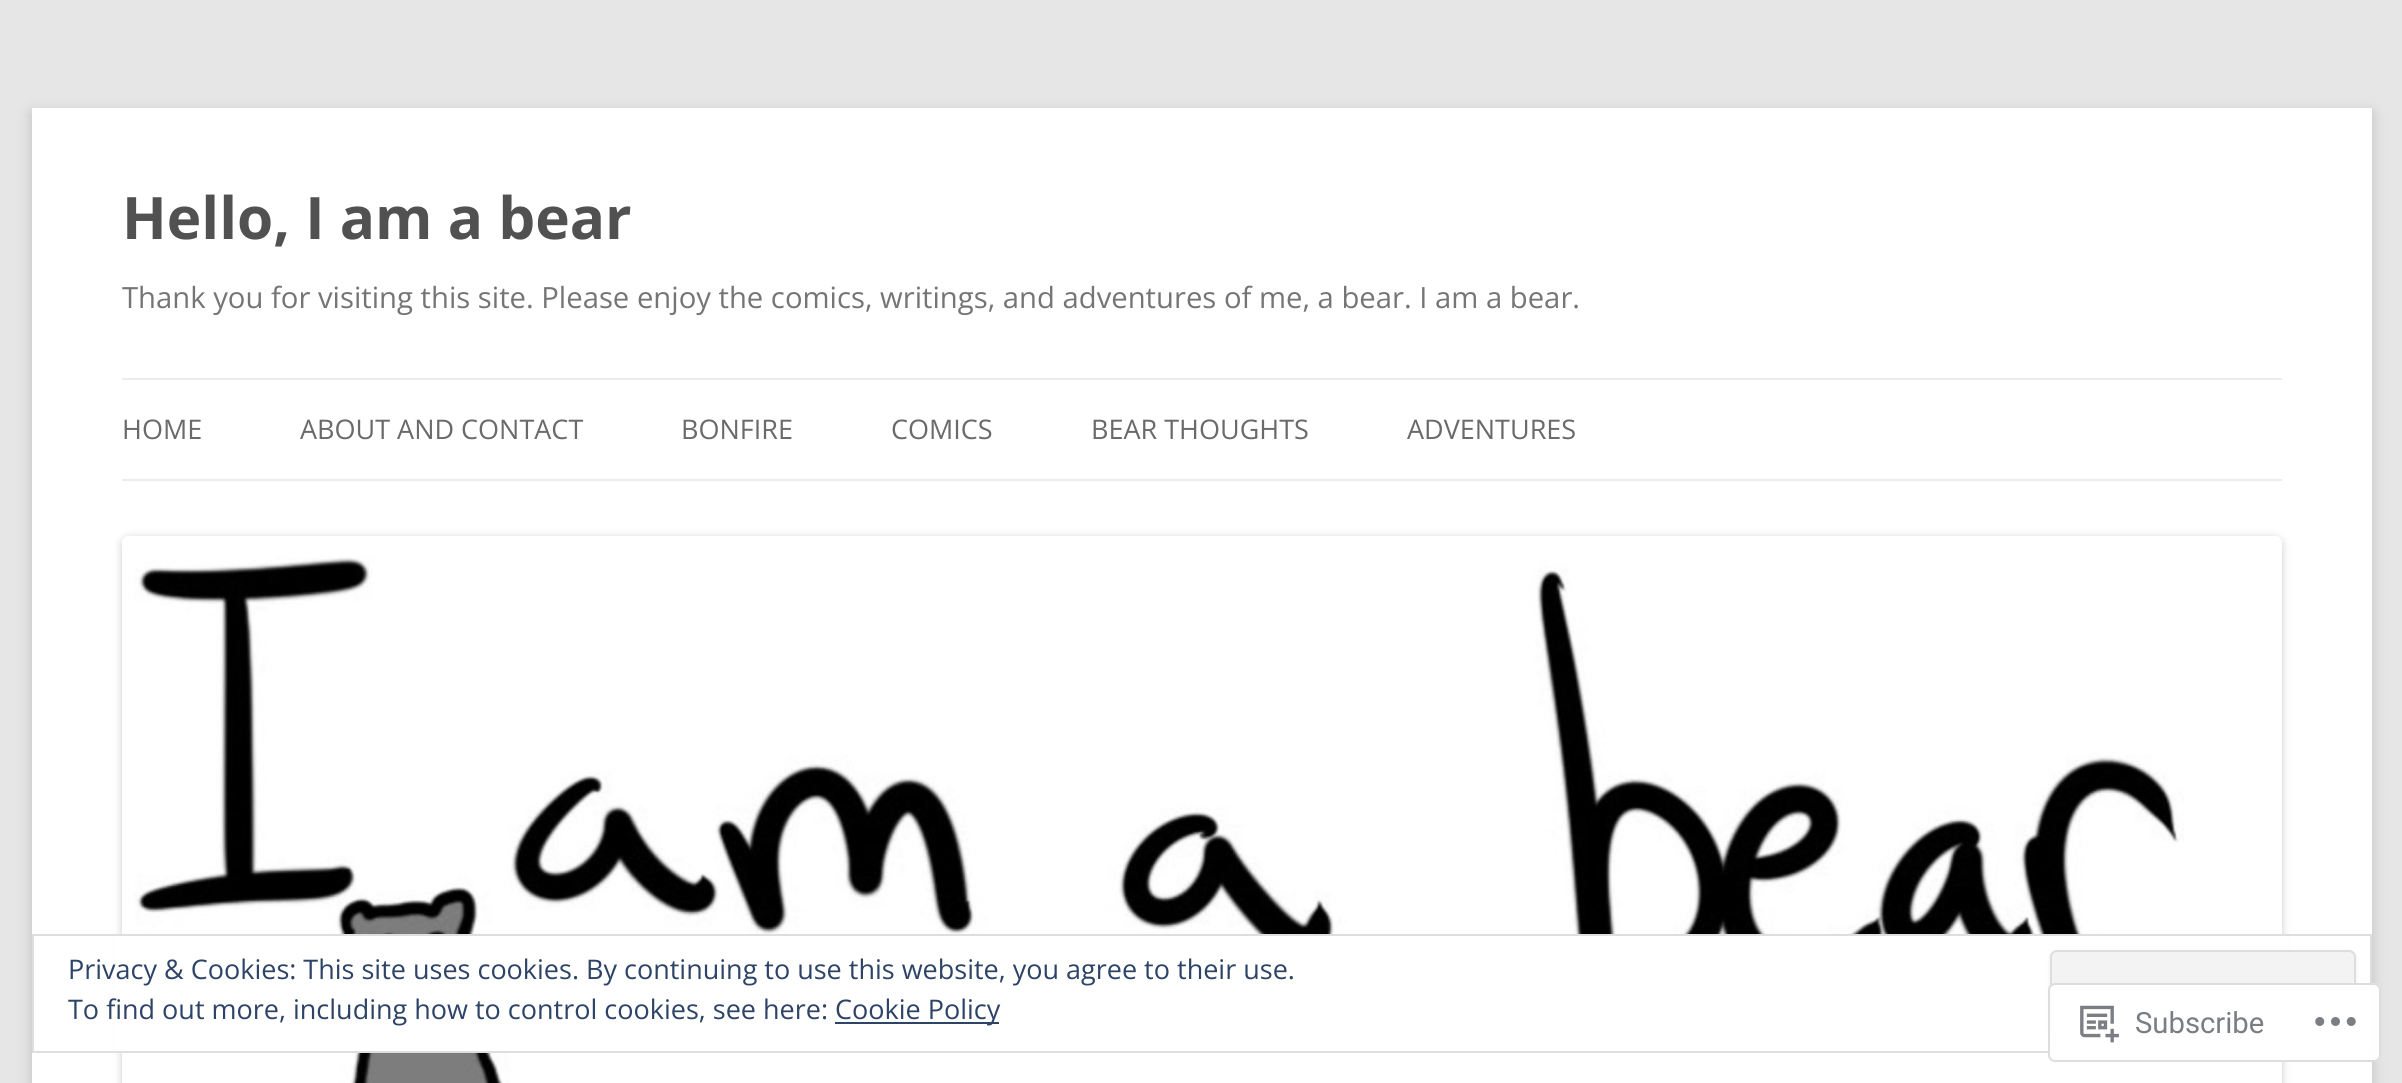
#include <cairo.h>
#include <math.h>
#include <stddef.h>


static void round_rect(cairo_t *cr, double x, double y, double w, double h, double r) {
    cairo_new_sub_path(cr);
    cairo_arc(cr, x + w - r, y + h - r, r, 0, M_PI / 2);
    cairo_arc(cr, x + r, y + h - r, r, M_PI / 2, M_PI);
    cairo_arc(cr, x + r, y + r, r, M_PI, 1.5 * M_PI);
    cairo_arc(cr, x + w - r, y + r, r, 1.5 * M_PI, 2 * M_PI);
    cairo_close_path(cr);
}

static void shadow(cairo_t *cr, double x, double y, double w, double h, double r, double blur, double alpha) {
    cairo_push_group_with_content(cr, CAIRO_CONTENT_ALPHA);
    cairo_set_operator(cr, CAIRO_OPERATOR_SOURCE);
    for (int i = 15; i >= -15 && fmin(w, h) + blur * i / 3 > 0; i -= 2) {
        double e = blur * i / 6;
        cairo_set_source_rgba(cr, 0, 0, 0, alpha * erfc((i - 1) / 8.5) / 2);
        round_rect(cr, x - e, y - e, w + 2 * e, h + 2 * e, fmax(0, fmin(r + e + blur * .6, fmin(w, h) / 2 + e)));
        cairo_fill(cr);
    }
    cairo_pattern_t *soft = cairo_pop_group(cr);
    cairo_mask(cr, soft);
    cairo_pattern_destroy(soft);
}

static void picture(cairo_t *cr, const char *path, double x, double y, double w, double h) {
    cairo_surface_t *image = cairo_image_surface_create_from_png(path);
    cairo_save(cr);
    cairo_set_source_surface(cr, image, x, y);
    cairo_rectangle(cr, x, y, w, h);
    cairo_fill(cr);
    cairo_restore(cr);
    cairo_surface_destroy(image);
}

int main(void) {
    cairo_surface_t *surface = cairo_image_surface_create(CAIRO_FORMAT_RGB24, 2402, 1083);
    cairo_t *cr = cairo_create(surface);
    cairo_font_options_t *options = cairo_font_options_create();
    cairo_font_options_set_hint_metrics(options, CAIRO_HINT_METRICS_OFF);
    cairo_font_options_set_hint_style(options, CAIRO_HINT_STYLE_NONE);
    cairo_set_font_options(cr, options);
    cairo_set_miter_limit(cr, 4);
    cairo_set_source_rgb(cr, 0.902, 0.902, 0.902);
    cairo_paint(cr);
    cairo_set_source_rgb(cr, 0.392, 0.392, 0.392);
    shadow(cr, 32, 113, 2340, 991, 0, 7, 0.3);
    cairo_set_source_rgb(cr, 1, 1, 1);
    cairo_rectangle(cr, 32, 108, 2340, 975);
    cairo_fill(cr);
    cairo_select_font_face(cr, "Open Sans", CAIRO_FONT_SLANT_NORMAL, CAIRO_FONT_WEIGHT_BOLD);
    cairo_set_font_size(cr, 58.5);
    cairo_set_source_rgb(cr, 0.318, 0.318, 0.318);
    cairo_move_to(cr, 122, 239);
    cairo_show_text(cr, "Hello, I am a bear");
    cairo_select_font_face(cr, "Open Sans", CAIRO_FONT_SLANT_NORMAL, CAIRO_FONT_WEIGHT_NORMAL);
    cairo_set_font_size(cr, 29.25);
    cairo_set_source_rgb(cr, 0.459, 0.459, 0.459);
    cairo_move_to(cr, 122, 308);
    cairo_show_text(cr, "Thank you for visiting this site. Please enjoy the comics, writings, and adventures of me, a bear. I am a bear.");
    cairo_set_source_rgb(cr, 0.929, 0.929, 0.929);
    cairo_rectangle(cr, 122, 378, 2160, 2);
    cairo_fill(cr);
    cairo_rectangle(cr, 122, 479, 2160, 2);
    cairo_fill(cr);
    cairo_set_font_size(cr, 27);
    cairo_set_source_rgb(cr, 0.416, 0.416, 0.416);
    cairo_move_to(cr, 122, 439);
    cairo_show_text(cr, "HOME");
    cairo_move_to(cr, 300, 439);
    cairo_show_text(cr, "ABOUT AND CONTACT");
    cairo_move_to(cr, 681, 439);
    cairo_show_text(cr, "BONFIRE");
    cairo_move_to(cr, 891, 439);
    cairo_show_text(cr, "COMICS");
    cairo_move_to(cr, 1091, 439);
    cairo_show_text(cr, "BEAR THOUGHTS");
    cairo_move_to(cr, 1407, 439);
    cairo_show_text(cr, "ADVENTURES");
    cairo_save(cr);
    cairo_set_fill_rule(cr, CAIRO_FILL_RULE_EVEN_ODD);
    cairo_new_path(cr);
    cairo_move_to(cr, 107, 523);
    cairo_line_to(cr, 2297, 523);
    cairo_line_to(cr, 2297, 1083);
    cairo_line_to(cr, 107, 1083);
    cairo_close_path(cr);
    cairo_move_to(cr, 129, 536);
    cairo_line_to(cr, 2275, 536);
    cairo_curve_to(cr, 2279, 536, 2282, 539, 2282, 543);
    cairo_line_to(cr, 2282, 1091);
    cairo_curve_to(cr, 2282, 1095, 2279, 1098, 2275, 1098);
    cairo_line_to(cr, 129, 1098);
    cairo_curve_to(cr, 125, 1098, 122, 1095, 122, 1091);
    cairo_line_to(cr, 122, 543);
    cairo_curve_to(cr, 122, 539, 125, 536, 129, 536);
    cairo_close_path(cr);
    cairo_clip(cr);
    cairo_set_source_rgb(cr, 0, 0, 0);
    shadow(cr, 122, 538, 2160, 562, 7, 4.5, 0.2);
    cairo_restore(cr);
    picture(cr, "img1.png", 134, 557, 2050, 526);
    cairo_set_source_rgb(cr, 1, 1, 1);
    cairo_rectangle(cr, 115, 936, 2174, 115);
    cairo_fill(cr);
    cairo_rectangle(cr, 33, 935, 2338, 117);
    cairo_set_source_rgb(cr, 0.871, 0.871, 0.871);
    cairo_stroke(cr);
    cairo_set_source_rgb(cr, 0.18, 0.267, 0.404);
    cairo_move_to(cr, 68, 979);
    cairo_show_text(cr, "Privacy & Cookies: This site uses cookies. By continuing to use this website, you agree to their use.");
    cairo_set_source_rgb(cr, 0.251, 0.251, 0.251);
    shadow(cr, 2050, 952, 306, 88, 7, 2, 0.1);
    cairo_set_source_rgb(cr, 0.953, 0.953, 0.953);
    round_rect(cr, 2051, 951, 304, 85, 6);
    cairo_fill_preserve(cr);
    cairo_set_source_rgb(cr, 0.871, 0.871, 0.871);
    cairo_stroke(cr);
    cairo_set_source_rgb(cr, 0.18, 0.267, 0.404);
    cairo_move_to(cr, 68, 1019);
    cairo_show_text(cr, "To find out more, including how to control cookies, see here:");
    cairo_rectangle(cr, 835, 1022, 164, 2);
    cairo_fill(cr);
    cairo_move_to(cr, 835, 1019);
    cairo_show_text(cr, "Cookie Policy");
    cairo_set_source_rgba(cr, 1, 1, 1, 0.98);
    round_rect(cr, 2048, 983, 333, 79, 7);
    cairo_fill(cr);
    round_rect(cr, 2049, 984, 331, 77, 6);
    cairo_set_source_rgba(cr, 0.863, 0.863, 0.871, 0.98);
    cairo_stroke(cr);
    picture(cr, "img2.png", 2080, 1005, 39, 38);
    cairo_select_font_face(cr, "Roboto", CAIRO_FONT_SLANT_NORMAL, CAIRO_FONT_WEIGHT_NORMAL);
    cairo_set_font_size(cr, 29.25);
    cairo_set_source_rgb(cr, 0.478, 0.494, 0.518);
    cairo_move_to(cr, 2135, 1033);
    cairo_show_text(cr, "Subscribe");
    picture(cr, "img3.png", 2315, 1017, 41, 9);
    cairo_surface_write_to_png(surface, "page.png");
    cairo_font_options_destroy(options);
    cairo_destroy(cr);
    cairo_surface_destroy(surface);
    return 0;
}
